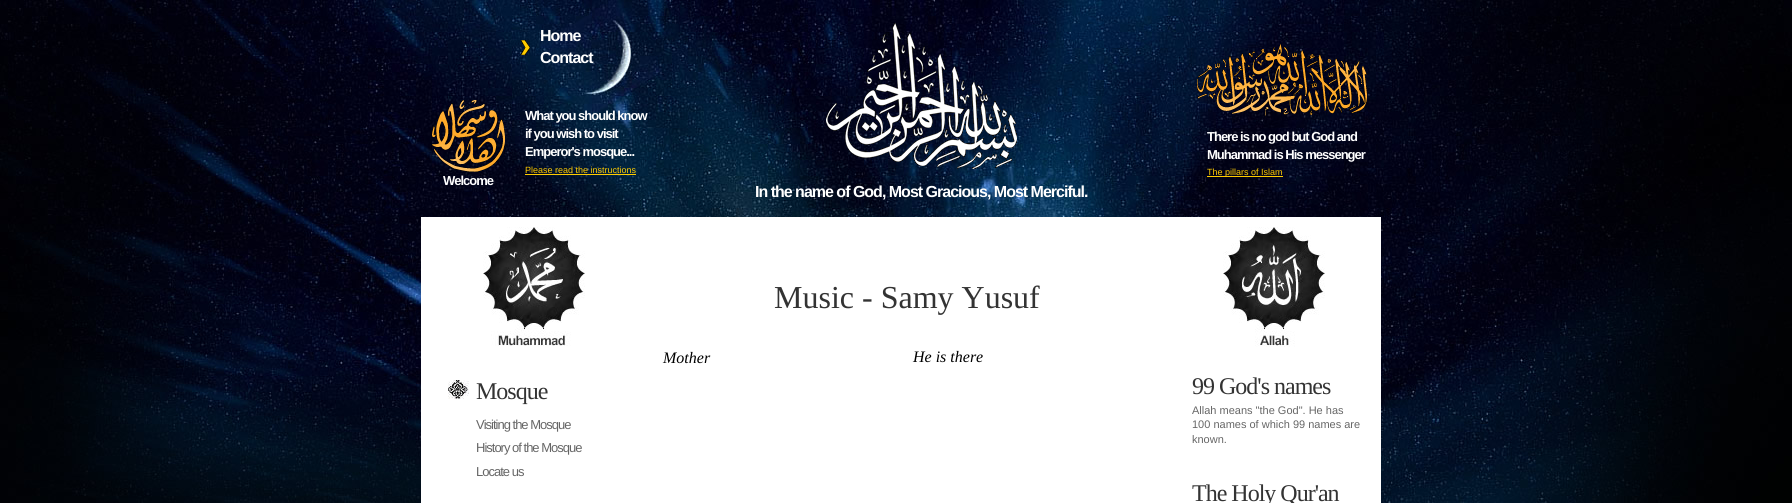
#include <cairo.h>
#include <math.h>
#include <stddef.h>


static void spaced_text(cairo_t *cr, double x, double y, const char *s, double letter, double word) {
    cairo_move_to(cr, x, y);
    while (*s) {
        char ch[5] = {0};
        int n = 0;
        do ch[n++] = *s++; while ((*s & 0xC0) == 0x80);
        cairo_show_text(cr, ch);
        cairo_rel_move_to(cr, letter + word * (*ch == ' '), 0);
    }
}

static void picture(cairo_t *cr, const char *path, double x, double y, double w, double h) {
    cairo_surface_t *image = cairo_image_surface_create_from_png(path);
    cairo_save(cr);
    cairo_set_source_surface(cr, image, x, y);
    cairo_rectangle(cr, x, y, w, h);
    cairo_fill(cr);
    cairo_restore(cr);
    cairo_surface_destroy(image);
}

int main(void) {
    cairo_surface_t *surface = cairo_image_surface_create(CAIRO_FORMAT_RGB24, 1792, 503);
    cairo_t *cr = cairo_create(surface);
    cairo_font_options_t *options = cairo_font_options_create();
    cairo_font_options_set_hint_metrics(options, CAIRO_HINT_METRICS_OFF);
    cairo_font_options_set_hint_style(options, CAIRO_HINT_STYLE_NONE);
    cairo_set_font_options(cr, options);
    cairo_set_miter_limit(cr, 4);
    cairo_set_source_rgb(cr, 1, 1, 1);
    cairo_paint(cr);
    picture(cr, "img1.png", 0, 0, 1792, 503);
    picture(cr, "img2.png", 521, 40, 9, 15);
    cairo_select_font_face(cr, "Liberation Sans", CAIRO_FONT_SLANT_NORMAL, CAIRO_FONT_WEIGHT_BOLD);
    cairo_set_font_size(cr, 16);
    cairo_set_source_rgb(cr, 1, 1, 1);
    spaced_text(cr, 540, 41, "Home", -1, 0);
    spaced_text(cr, 540, 63, "Contact", -1, 0);
    cairo_set_font_size(cr, 13);
    spaced_text(cr, 525, 120, "What you should know", -1, 0);
    spaced_text(cr, 525, 138, "if you wish to visit", -1, 0);
    spaced_text(cr, 525, 156, "Emperor's mosque...", -1, 0);
    cairo_select_font_face(cr, "Liberation Sans", CAIRO_FONT_SLANT_NORMAL, CAIRO_FONT_WEIGHT_NORMAL);
    cairo_set_font_size(cr, 9);
    cairo_set_source_rgb(cr, 1, 0.8, 0);
    cairo_move_to(cr, 525, 173);
    cairo_show_text(cr, "Please read the instructions");
    cairo_rectangle(cr, 525, 174, 111, 1);
    cairo_fill(cr);
    picture(cr, "img3.png", 432, 100, 73, 72);
    cairo_select_font_face(cr, "Liberation Sans", CAIRO_FONT_SLANT_NORMAL, CAIRO_FONT_WEIGHT_BOLD);
    cairo_set_font_size(cr, 13);
    cairo_set_source_rgb(cr, 1, 1, 1);
    spaced_text(cr, 443, 185, "Welcome", -1, 0);
    picture(cr, "img4.png", 1197, 44, 170, 72);
    spaced_text(cr, 1207, 141, "There is no god but God and", -1, 0);
    spaced_text(cr, 1207, 159, "Muhammad is His messenger", -1, 0);
    cairo_set_source_rgb(cr, 1, 0.8, 0);
    cairo_rectangle(cr, 1207, 176, 76, 1);
    cairo_fill(cr);
    cairo_select_font_face(cr, "Liberation Sans", CAIRO_FONT_SLANT_NORMAL, CAIRO_FONT_WEIGHT_NORMAL);
    cairo_set_font_size(cr, 9);
    cairo_move_to(cr, 1207, 175);
    cairo_show_text(cr, "The pillars of Islam");
    picture(cr, "img5.png", 826, 23, 191, 146);
    cairo_select_font_face(cr, "Liberation Sans", CAIRO_FONT_SLANT_NORMAL, CAIRO_FONT_WEIGHT_BOLD);
    cairo_set_font_size(cr, 16);
    cairo_set_source_rgb(cr, 1, 1, 1);
    spaced_text(cr, 755, 197, "In the name of God, Most Gracious, Most Merciful.", -1, 0);
    cairo_rectangle(cr, 421, 217, 960, 286);
    cairo_fill(cr);
    cairo_select_font_face(cr, "Liberation Serif", CAIRO_FONT_SLANT_NORMAL, CAIRO_FONT_WEIGHT_NORMAL);
    cairo_set_font_size(cr, 32);
    cairo_set_source_rgb(cr, 0.2, 0.2, 0.2);
    cairo_move_to(cr, 774, 308);
    cairo_show_text(cr, "Music - Samy Yusuf");
    cairo_select_font_face(cr, "Liberation Serif", CAIRO_FONT_SLANT_ITALIC, CAIRO_FONT_WEIGHT_NORMAL);
    cairo_set_font_size(cr, 16);
    cairo_set_source_rgb(cr, 0, 0, 0);
    cairo_move_to(cr, 663, 363);
    cairo_show_text(cr, "Mother");
    cairo_move_to(cr, 913, 362);
    cairo_show_text(cr, "He is there");
    picture(cr, "img6.png", 483, 227, 102, 119);
    picture(cr, "img7.png", 448, 380, 21, 19);
    cairo_select_font_face(cr, "Liberation Serif", CAIRO_FONT_SLANT_NORMAL, CAIRO_FONT_WEIGHT_NORMAL);
    cairo_set_font_size(cr, 24);
    cairo_set_source_rgb(cr, 0.2, 0.2, 0.2);
    spaced_text(cr, 476, 399, "Mosque", -1, 0);
    cairo_select_font_face(cr, "Liberation Sans", CAIRO_FONT_SLANT_NORMAL, CAIRO_FONT_WEIGHT_NORMAL);
    cairo_set_font_size(cr, 13);
    cairo_set_source_rgb(cr, 0.4, 0.4, 0.4);
    spaced_text(cr, 476, 429, "Visiting the Mosque", -1, 0);
    spaced_text(cr, 476, 452, "History of the Mosque", -1, 0);
    spaced_text(cr, 476, 476, "Locate us", -1, 0);
    picture(cr, "img8.png", 1223, 227, 102, 120);
    cairo_select_font_face(cr, "Liberation Serif", CAIRO_FONT_SLANT_NORMAL, CAIRO_FONT_WEIGHT_NORMAL);
    cairo_set_font_size(cr, 24);
    cairo_set_source_rgb(cr, 0.2, 0.2, 0.2);
    spaced_text(cr, 1192, 394, "99 God's names", -1, 0);
    cairo_select_font_face(cr, "Liberation Sans", CAIRO_FONT_SLANT_NORMAL, CAIRO_FONT_WEIGHT_NORMAL);
    cairo_set_font_size(cr, 11);
    cairo_set_source_rgb(cr, 0.4, 0.4, 0.4);
    cairo_move_to(cr, 1192, 414);
    cairo_show_text(cr, "Allah means \"the God\". He has");
    cairo_move_to(cr, 1192, 428);
    cairo_show_text(cr, "100 names of which 99 names are");
    cairo_move_to(cr, 1192, 443);
    cairo_show_text(cr, "known.");
    cairo_select_font_face(cr, "Liberation Serif", CAIRO_FONT_SLANT_NORMAL, CAIRO_FONT_WEIGHT_NORMAL);
    cairo_set_font_size(cr, 24);
    cairo_set_source_rgb(cr, 0.2, 0.2, 0.2);
    spaced_text(cr, 1192, 501, "The Holy Qur'an", -1, 0);
    cairo_surface_write_to_png(surface, "page.png");
    cairo_font_options_destroy(options);
    cairo_destroy(cr);
    cairo_surface_destroy(surface);
    return 0;
}
